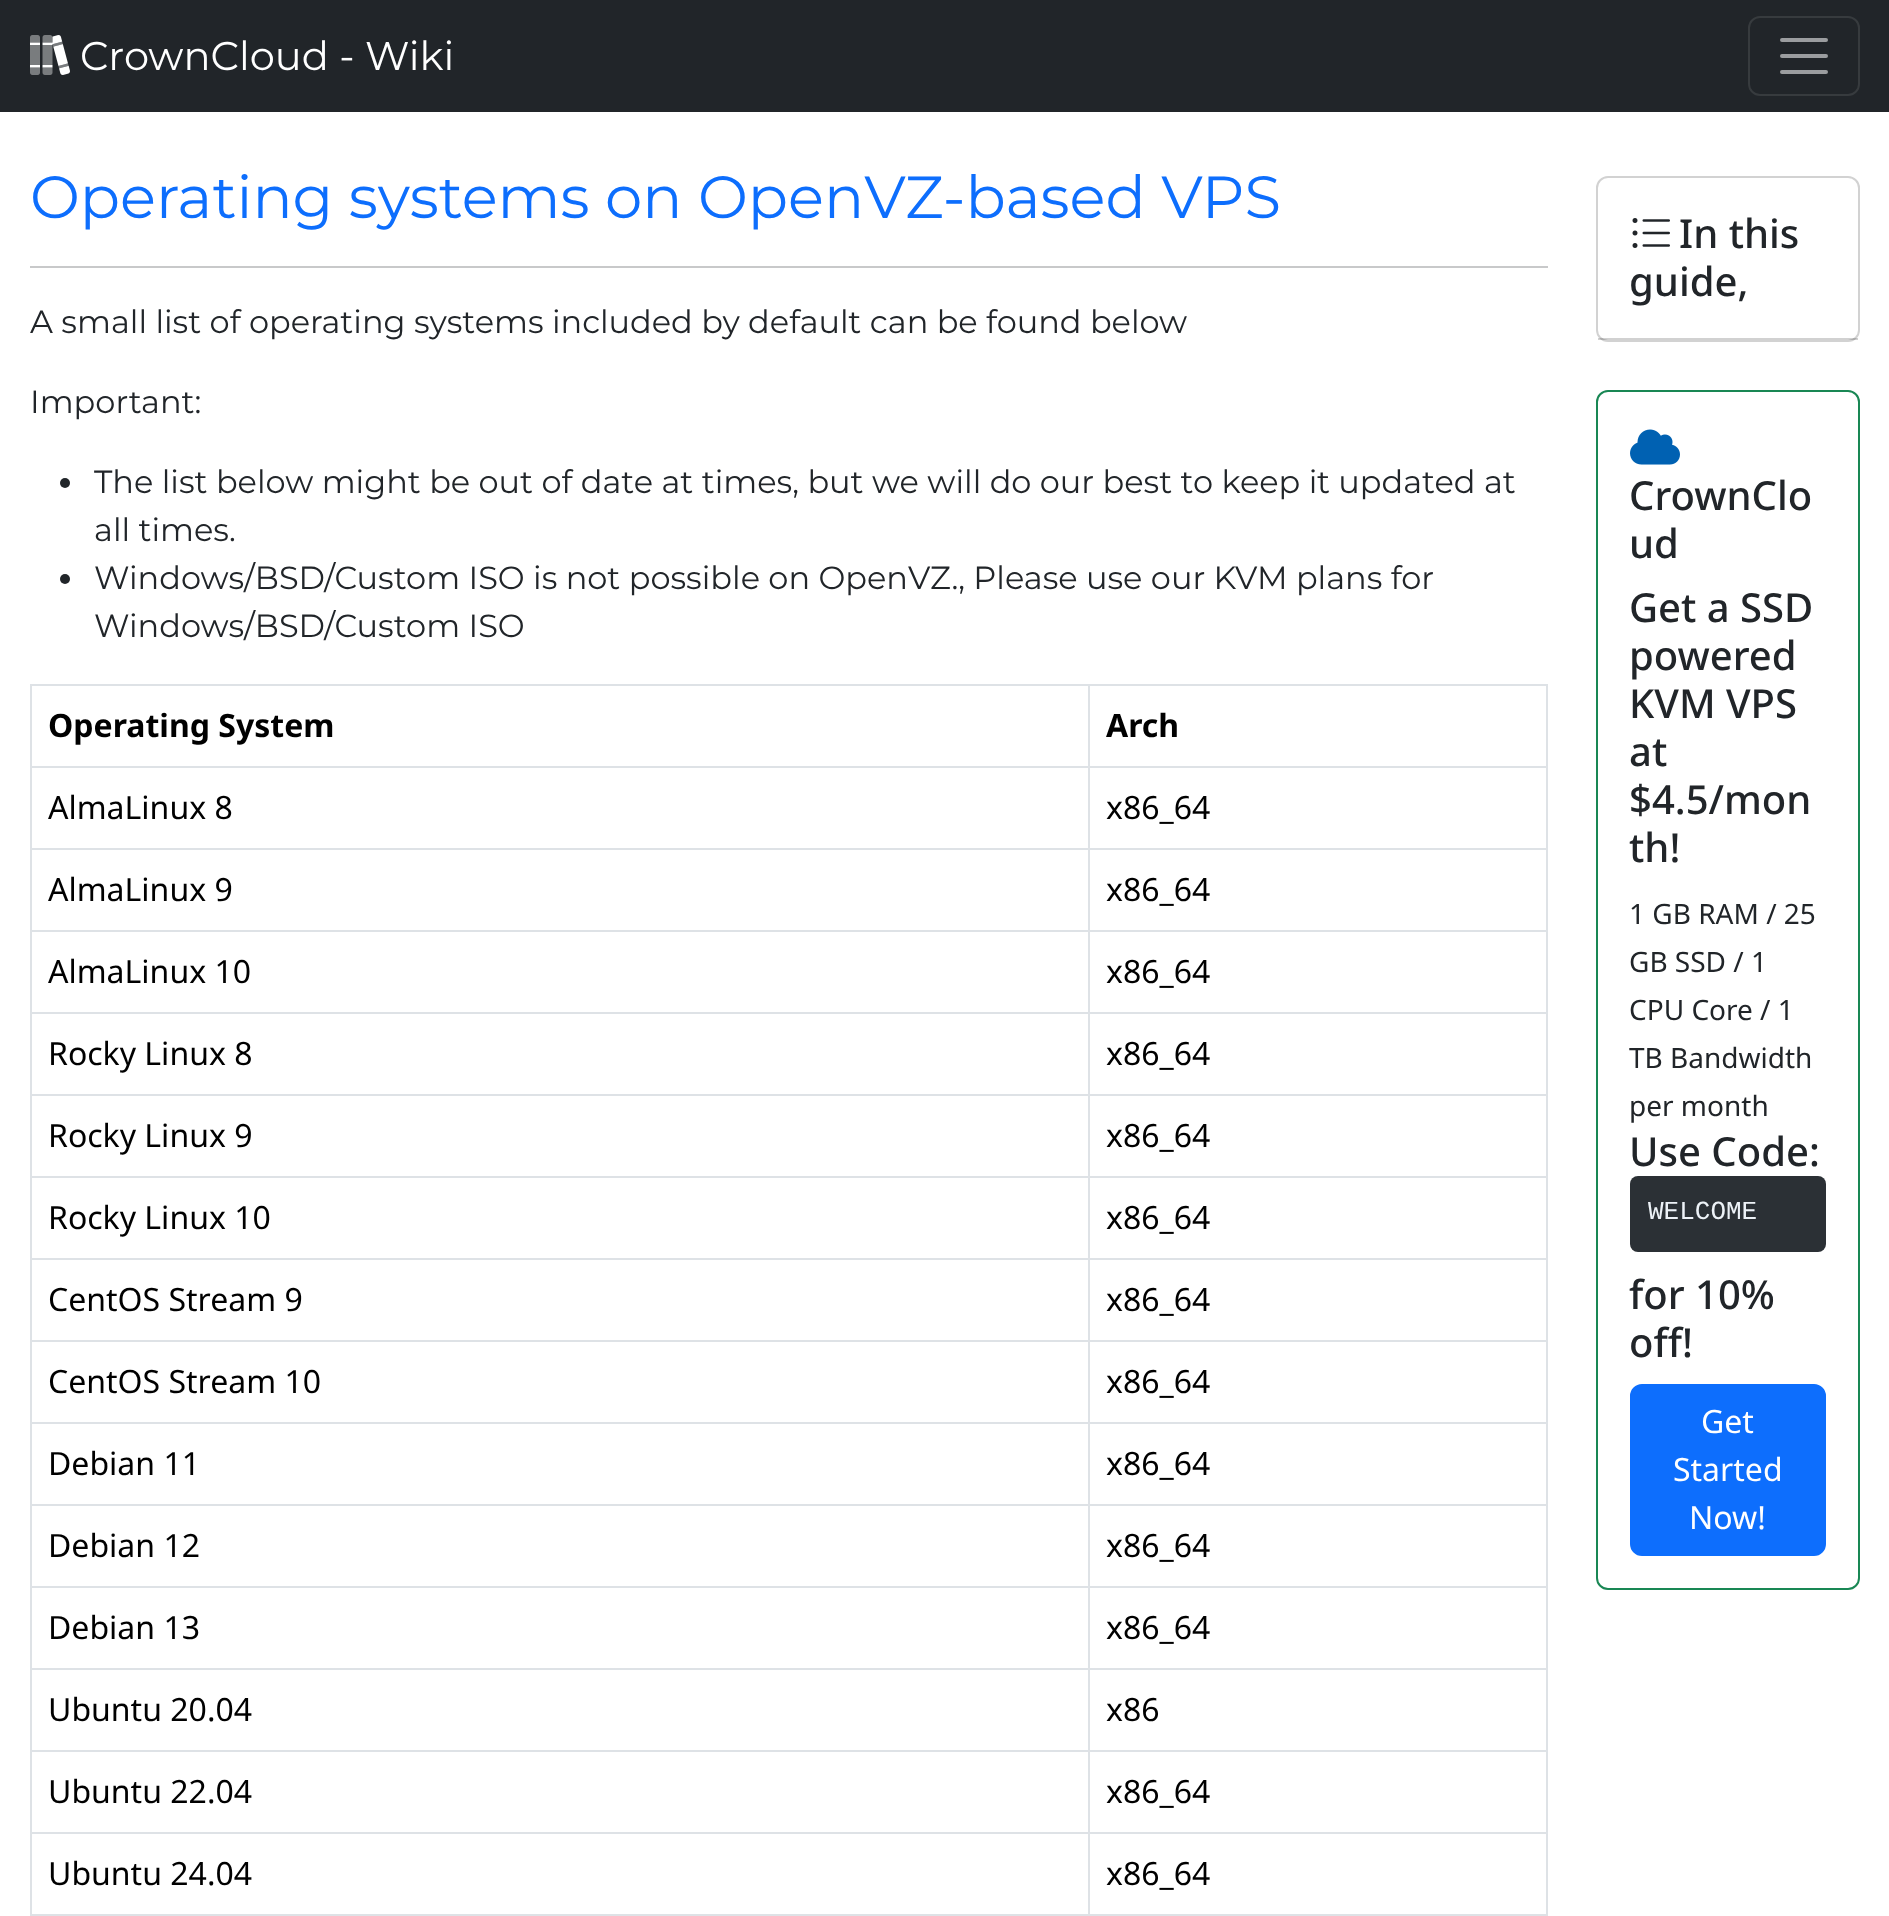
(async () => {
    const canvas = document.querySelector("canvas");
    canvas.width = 1889;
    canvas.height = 1916;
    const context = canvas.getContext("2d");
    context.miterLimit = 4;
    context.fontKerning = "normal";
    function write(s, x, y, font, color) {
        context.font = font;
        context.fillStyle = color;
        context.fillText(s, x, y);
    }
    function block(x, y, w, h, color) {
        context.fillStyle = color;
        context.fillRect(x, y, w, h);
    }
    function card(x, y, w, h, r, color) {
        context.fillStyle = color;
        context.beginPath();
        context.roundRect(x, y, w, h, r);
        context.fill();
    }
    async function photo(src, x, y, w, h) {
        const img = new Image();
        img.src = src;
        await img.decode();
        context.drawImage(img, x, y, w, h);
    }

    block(0, 0, 1889, 1916, "rgb(255, 255, 255)");
    block(0, 0, 1889, 112, "rgb(33, 37, 41)");
    await photo("media/1.png", 30, 35, 40, 40);
    await photo("media/2.png", 30, 35, 39, 40);
    write("CrownCloud - Wiki", 80, 70, "100 40px Montserrat", "rgb(255, 255, 255)");
    context.beginPath();
    context.roundRect(1749, 17, 110, 78, 11);
    context.strokeStyle = "rgb(55, 59, 62)";
    context.lineWidth = 2;
    context.stroke();
    context.beginPath();
    context.moveTo(1782, 40);
    context.lineTo(1826, 40);
    context.moveTo(1782, 56);
    context.lineTo(1826, 56);
    context.moveTo(1782, 72);
    context.lineTo(1826, 72);
    context.strokeStyle = "rgb(155, 157, 159)";
    context.lineWidth = 4;
    context.lineCap = "round";
    context.stroke();
    write("Operating systems on OpenVZ-based VPS", 30, 218, "100 59.4px Montserrat", "rgb(13, 110, 253)");
    block(30, 266, 1518, 2, "rgb(200, 201, 202)");
    write("A small list of operating systems included by default can be found below", 30, 333, "100 32px Montserrat", "rgb(33, 37, 41)");
    write("Important:", 30, 413, "100 32px Montserrat", "rgb(33, 37, 41)");
    context.beginPath();
    context.arc(65, 483, 5, 0, Math.PI * 2);
    context.fill();
    write("The list below might be out of date at times, but we will do our best to keep it updated at", 94, 493, "100 32px Montserrat", "rgb(33, 37, 41)");
    write("all times.", 94, 541, "100 32px Montserrat", "rgb(33, 37, 41)");
    context.beginPath();
    context.arc(65, 579, 5, 0, Math.PI * 2);
    context.fill();
    write("Windows/BSD/Custom ISO is not possible on OpenVZ., Please use our KVM plans for", 94, 589, "100 32px Montserrat", "rgb(33, 37, 41)");
    write("Windows/BSD/Custom ISO", 94, 637, "100 32px Montserrat", "rgb(33, 37, 41)");
    block(30, 684, 1518, 2, "rgb(222, 226, 230)");
    write("Operating System", 48, 737, "bold 32px Noto Sans", "rgb(0, 0, 0)");
    write("Arch", 1106, 737, "bold 32px Noto Sans", "rgb(0, 0, 0)");
    block(30, 766, 1518, 2, "rgb(222, 226, 230)");
    write("AlmaLinux 8", 48, 819, "32px Noto Sans", "rgb(0, 0, 0)");
    write("x86_64", 1106, 819, "32px Noto Sans", "rgb(0, 0, 0)");
    block(30, 848, 1518, 2, "rgb(222, 226, 230)");
    write("AlmaLinux 9", 48, 901, "32px Noto Sans", "rgb(0, 0, 0)");
    write("x86_64", 1106, 901, "32px Noto Sans", "rgb(0, 0, 0)");
    block(30, 930, 1518, 2, "rgb(222, 226, 230)");
    write("AlmaLinux 10", 48, 983, "32px Noto Sans", "rgb(0, 0, 0)");
    write("x86_64", 1106, 983, "32px Noto Sans", "rgb(0, 0, 0)");
    block(30, 1012, 1518, 2, "rgb(222, 226, 230)");
    write("Rocky Linux 8", 48, 1065, "32px Noto Sans", "rgb(0, 0, 0)");
    write("x86_64", 1106, 1065, "32px Noto Sans", "rgb(0, 0, 0)");
    block(30, 1094, 1518, 2, "rgb(222, 226, 230)");
    write("Rocky Linux 9", 48, 1147, "32px Noto Sans", "rgb(0, 0, 0)");
    write("x86_64", 1106, 1147, "32px Noto Sans", "rgb(0, 0, 0)");
    block(30, 1176, 1518, 2, "rgb(222, 226, 230)");
    write("Rocky Linux 10", 48, 1229, "32px Noto Sans", "rgb(0, 0, 0)");
    write("x86_64", 1106, 1229, "32px Noto Sans", "rgb(0, 0, 0)");
    block(30, 1258, 1518, 2, "rgb(222, 226, 230)");
    write("CentOS Stream 9", 48, 1311, "32px Noto Sans", "rgb(0, 0, 0)");
    write("x86_64", 1106, 1311, "32px Noto Sans", "rgb(0, 0, 0)");
    block(30, 1340, 1518, 2, "rgb(222, 226, 230)");
    write("CentOS Stream 10", 48, 1393, "32px Noto Sans", "rgb(0, 0, 0)");
    write("x86_64", 1106, 1393, "32px Noto Sans", "rgb(0, 0, 0)");
    block(30, 1422, 1518, 2, "rgb(222, 226, 230)");
    write("Debian 11", 48, 1475, "32px Noto Sans", "rgb(0, 0, 0)");
    write("x86_64", 1106, 1475, "32px Noto Sans", "rgb(0, 0, 0)");
    block(30, 1504, 1518, 2, "rgb(222, 226, 230)");
    write("Debian 12", 48, 1557, "32px Noto Sans", "rgb(0, 0, 0)");
    write("x86_64", 1106, 1557, "32px Noto Sans", "rgb(0, 0, 0)");
    block(30, 1586, 1518, 2, "rgb(222, 226, 230)");
    write("Debian 13", 48, 1639, "32px Noto Sans", "rgb(0, 0, 0)");
    write("x86_64", 1106, 1639, "32px Noto Sans", "rgb(0, 0, 0)");
    block(30, 1668, 1518, 2, "rgb(222, 226, 230)");
    write("Ubuntu 20.04", 48, 1721, "32px Noto Sans", "rgb(0, 0, 0)");
    write("x86", 1106, 1721, "32px Noto Sans", "rgb(0, 0, 0)");
    block(30, 1750, 1518, 2, "rgb(222, 226, 230)");
    write("Ubuntu 22.04", 48, 1803, "32px Noto Sans", "rgb(0, 0, 0)");
    write("x86_64", 1106, 1803, "32px Noto Sans", "rgb(0, 0, 0)");
    block(30, 1832, 1518, 2, "rgb(222, 226, 230)");
    block(30, 1914, 1518, 2, "rgb(222, 226, 230)");
    block(30, 684, 2, 1232, "rgb(222, 226, 230)");
    write("Ubuntu 24.04", 48, 1885, "32px Noto Sans", "rgb(0, 0, 0)");
    block(1546, 684, 2, 1232, "rgb(222, 226, 230)");
    block(1088, 684, 2, 1232, "rgb(222, 226, 230)");
    write("x86_64", 1106, 1885, "32px Noto Sans", "rgb(0, 0, 0)");
    context.beginPath();
    context.roundRect(1597, 177, 262, 164, 11);
    context.strokeStyle = "rgb(210, 210, 210)";
    context.lineWidth = 2;
    context.stroke();
    await photo("media/3.png", 1632, 218, 38, 30);
    write("In this", 1679, 248, "500 40px Noto Sans", "rgb(33, 37, 41)");
    write("guide,", 1629, 296, "500 40px Noto Sans", "rgb(33, 37, 41)");
    block(1598, 338, 260, 2, "rgba(0, 0, 0, 0.18)");
    context.beginPath();
    context.roundRect(1597, 391, 262, 1198, 11);
    context.strokeStyle = "rgb(25, 135, 84)";
    context.stroke();
    await photo("media/4.png", 1630, 429, 50, 36);
    write("CrownClo", 1629, 510, "500 40px Noto Sans", "rgb(33, 37, 41)");
    write("ud", 1629, 558, "500 40px Noto Sans", "rgb(33, 37, 41)");
    write("Get a SSD", 1629, 622, "500 40px Noto Sans", "rgb(33, 37, 41)");
    write("powered", 1629, 670, "500 40px Noto Sans", "rgb(33, 37, 41)");
    write("KVM VPS", 1629, 718, "500 40px Noto Sans", "rgb(33, 37, 41)");
    write("at", 1629, 766, "500 40px Noto Sans", "rgb(33, 37, 41)");
    write("$4.5/mon", 1629, 814, "500 40px Noto Sans", "rgb(33, 37, 41)");
    write("th!", 1629, 862, "500 40px Noto Sans", "rgb(33, 37, 41)");
    write("1 GB RAM / 25", 1629, 924, "28px Noto Sans", "rgb(33, 37, 41)");
    write("GB SSD / 1", 1629, 972, "28px Noto Sans", "rgb(33, 37, 41)");
    write("CPU Core / 1", 1629, 1020, "28px Noto Sans", "rgb(33, 37, 41)");
    write("TB Bandwidth", 1629, 1068, "28px Noto Sans", "rgb(33, 37, 41)");
    write("per month", 1629, 1116, "28px Noto Sans", "rgb(33, 37, 41)");
    write("Use Code:", 1629, 1166, "500 40px Noto Sans", "rgb(33, 37, 41)");
    card(1630, 1176, 196, 76, 8, "rgb(43, 48, 53)");
    write("WELCOME", 1648, 1219, "26px Liberation Mono", "rgb(237, 242, 247)");
    write("for 10%", 1629, 1309, "500 40px Noto Sans", "rgb(33, 37, 41)");
    write("off!", 1629, 1357, "500 40px Noto Sans", "rgb(33, 37, 41)");
    context.fillStyle = "rgb(13, 110, 253)";
    context.beginPath();
    context.roundRect(1631, 1385, 194, 170, 11);
    context.fill();
    context.strokeStyle = "rgb(13, 110, 253)";
    context.stroke();
    write("Get", 1701, 1433, "32px Noto Sans", "rgb(255, 255, 255)");
    write("Started", 1673, 1481, "32px Noto Sans", "rgb(255, 255, 255)");
    write("Now!", 1689, 1529, "32px Noto Sans", "rgb(255, 255, 255)");
})();
